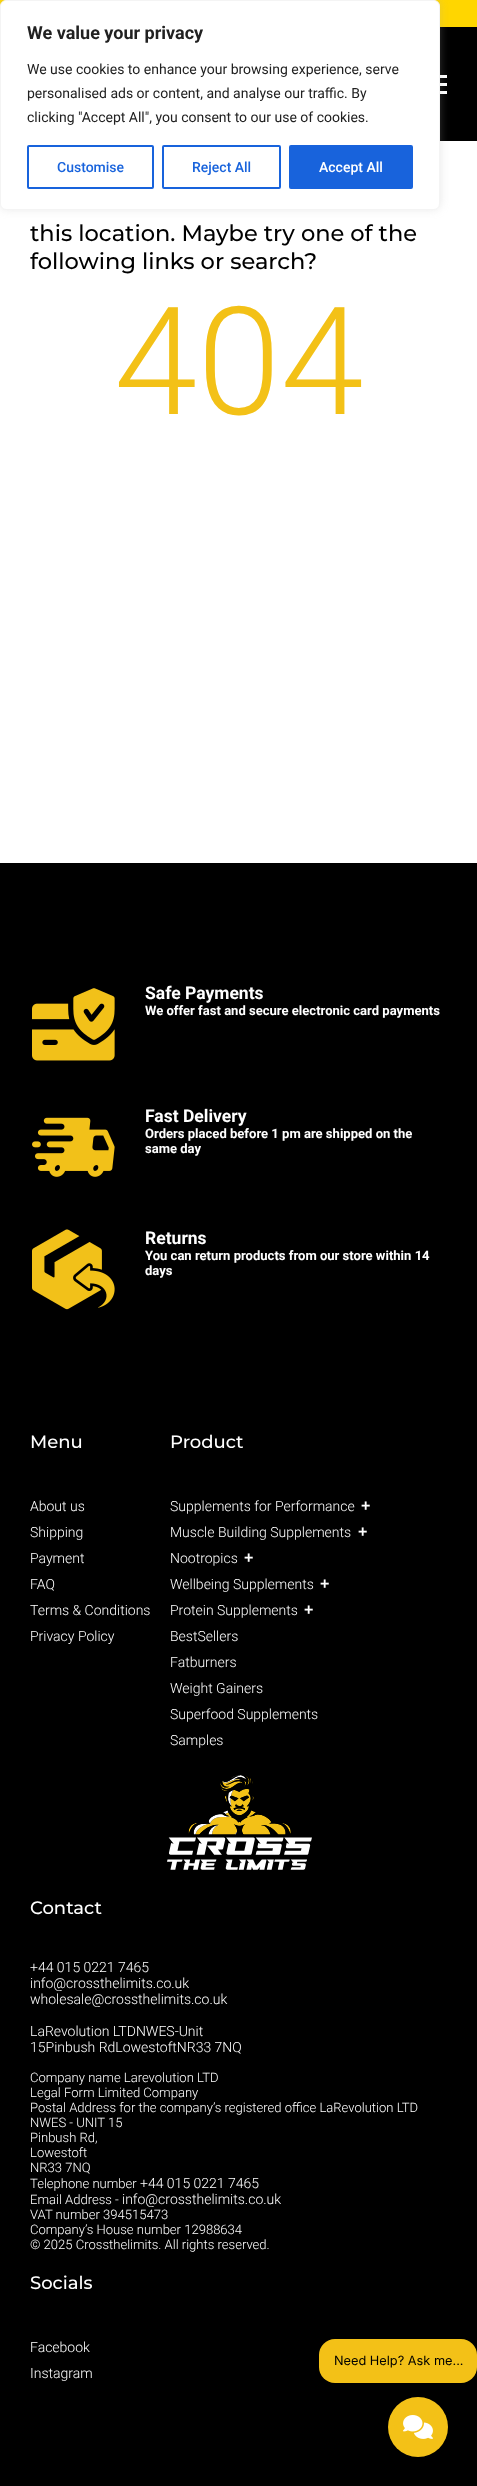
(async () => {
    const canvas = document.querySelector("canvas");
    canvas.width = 477;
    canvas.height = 2486;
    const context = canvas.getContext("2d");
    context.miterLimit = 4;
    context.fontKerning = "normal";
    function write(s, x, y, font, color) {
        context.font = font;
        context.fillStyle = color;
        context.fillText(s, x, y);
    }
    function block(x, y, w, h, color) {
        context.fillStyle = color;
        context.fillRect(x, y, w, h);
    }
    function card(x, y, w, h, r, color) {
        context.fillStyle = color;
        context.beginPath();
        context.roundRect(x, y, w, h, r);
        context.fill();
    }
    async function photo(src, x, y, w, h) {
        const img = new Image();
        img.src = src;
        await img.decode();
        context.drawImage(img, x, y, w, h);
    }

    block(0, 0, 477, 2486, "rgb(255, 255, 255)");
    block(0, 0, 477, 27, "rgb(255, 214, 0)");
    block(440, 27, 37, 114, "rgb(0, 0, 0)");
    block(440, 83, 7, 3, "rgb(255, 255, 255)");
    block(440, 75, 7, 3, "rgb(255, 255, 255)");
    block(440, 91, 7, 3, "rgb(255, 255, 255)");
    context.fillStyle = "rgba(172, 171, 171, 0.3)";
    context.filter = "blur(5px)";
    context.beginPath();
    context.roundRect(0, -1, 440, 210, 6);
    context.fill();
    context.filter = "none";
    context.fillStyle = "rgb(255, 255, 255)";
    context.beginPath();
    context.roundRect(0.5, 0.5, 439, 209, 5.5);
    context.fill();
    context.strokeStyle = "rgb(244, 244, 244)";
    context.stroke();
    write("We value your privacy", 27, 39, "bold 18px Roboto", "rgb(33, 33, 33)");
    write("We use cookies to enhance your browsing experience, serve", 27, 74, "14px Roboto", "rgb(33, 33, 33)");
    write("personalised ads or content, and analyse our traffic. By", 27, 98, "14px Roboto", "rgb(33, 33, 33)");
    write("clicking \"Accept All\", you consent to our use of cookies.", 27, 122, "14px Roboto", "rgb(33, 33, 33)");
    context.beginPath();
    context.roundRect(28, 146, 125, 42, 1);
    context.strokeStyle = "rgb(24, 99, 220)";
    context.lineWidth = 2;
    context.stroke();
    write("Customise", 57, 172, "500 14px Roboto", "rgb(24, 99, 220)");
    context.beginPath();
    context.roundRect(163, 146, 117, 42, 1);
    context.stroke();
    write("Reject All", 192, 172, "500 14px Roboto", "rgb(24, 99, 220)");
    context.beginPath();
    context.roundRect(290, 146, 122, 42, 1);
    context.fill();
    context.stroke();
    write("Accept All", 319, 172, "500 14px Roboto", "rgb(255, 255, 255)");
    write("this location. Maybe try one of the", 30, 241, "500 22.5px Montserrat", "rgb(0, 0, 0)");
    write("following links or search?", 30, 269, "500 22.5px Montserrat", "rgb(0, 0, 0)");
    write("404", 114, 414, "300 150px Roboto", "rgb(243, 193, 23)");
    block(0, 863, 477, 1623, "rgb(0, 0, 0)");
    await photo("media/1.png", 32, 988, 83, 73);
    write("Safe Payments", 145, 999, "bold 17.5px Roboto", "rgb(255, 255, 255)");
    write("We offer fast and secure electronic card payments", 145, 1015, "bold 13.05px Roboto", "rgb(255, 255, 255)");
    await photo("media/2.png", 32, 1117, 83, 60);
    write("Fast Delivery", 145, 1122, "bold 17.5px Roboto", "rgb(255, 255, 255)");
    write("Orders placed before 1 pm are shipped on the", 145, 1138, "bold 13.05px Roboto", "rgb(255, 255, 255)");
    write("same day", 145, 1153, "bold 13.05px Roboto", "rgb(255, 255, 255)");
    await photo("media/3.png", 32, 1229, 83, 81);
    write("Returns", 145, 1244, "bold 17.5px Roboto", "rgb(255, 255, 255)");
    write("You can return products from our store within 14", 145, 1260, "bold 13.05px Roboto", "rgb(255, 255, 255)");
    write("days", 145, 1275, "bold 13.05px Roboto", "rgb(255, 255, 255)");
    write("Menu", 30, 1448, "500 18px Montserrat", "rgb(255, 255, 255)");
    write("About us", 30, 1511, "300 14px Roboto", "rgb(255, 255, 255)");
    write("Shipping", 30, 1537, "300 14px Roboto", "rgb(255, 255, 255)");
    write("Payment", 30, 1563, "300 14px Roboto", "rgb(255, 255, 255)");
    write("FAQ", 30, 1589, "300 14px Roboto", "rgb(255, 255, 255)");
    write("Terms & Conditions", 30, 1615, "300 14px Roboto", "rgb(255, 255, 255)");
    write("Privacy Policy", 30, 1641, "300 14px Roboto", "rgb(255, 255, 255)");
    write("Product", 170, 1448, "500 18px Montserrat", "rgb(255, 255, 255)");
    write("Supplements for Performance", 170, 1511, "300 14px Roboto", "rgb(255, 255, 255)");
    write("+", 361, 1511, "bold 16px Liberation Sans", "rgb(255, 255, 255)");
    write("Muscle Building Supplements", 170, 1537, "300 14px Roboto", "rgb(255, 255, 255)");
    write("+", 358, 1537, "bold 16px Liberation Sans", "rgb(255, 255, 255)");
    write("Nootropics", 170, 1563, "300 14px Roboto", "rgb(255, 255, 255)");
    write("+", 244, 1563, "bold 16px Liberation Sans", "rgb(255, 255, 255)");
    write("Wellbeing Supplements", 170, 1589, "300 14px Roboto", "rgb(255, 255, 255)");
    write("+", 320, 1589, "bold 16px Liberation Sans", "rgb(255, 255, 255)");
    write("Protein Supplements", 170, 1615, "300 14px Roboto", "rgb(255, 255, 255)");
    write("+", 304, 1615, "bold 16px Liberation Sans", "rgb(255, 255, 255)");
    write("BestSellers", 170, 1641, "300 14px Roboto", "rgb(255, 255, 255)");
    write("Fatburners", 170, 1667, "300 14px Roboto", "rgb(255, 255, 255)");
    write("Weight Gainers", 170, 1693, "300 14px Roboto", "rgb(255, 255, 255)");
    write("Superfood Supplements", 170, 1719, "300 14px Roboto", "rgb(255, 255, 255)");
    write("Samples", 170, 1745, "300 14px Roboto", "rgb(255, 255, 255)");
    await photo("media/4.png", 167, 1775, 145, 95);
    write("Contact", 30, 1914, "500 18px Montserrat", "rgb(255, 255, 255)");
    write("+44 015 0221 7465", 30, 1972, "300 14px Roboto", "rgb(255, 255, 255)");
    write("info@crossthelimits.co.uk", 30, 1988, "300 14px Roboto", "rgb(255, 255, 255)");
    write("wholesale@crossthelimits.co.uk", 30, 2004, "300 14px Roboto", "rgb(255, 255, 255)");
    write("LaRevolution LTDNWES-Unit", 30, 2036, "300 14px Roboto", "rgb(255, 255, 255)");
    write("15Pinbush RdLowestoftNR33 7NQ", 30, 2052, "300 14px Roboto", "rgb(255, 255, 255)");
    write("Company name Larevolution LTD", 30, 2082, "300 13.05px Roboto", "rgb(255, 255, 255)");
    write("Legal Form Limited Company", 30, 2097, "300 13.05px Roboto", "rgb(255, 255, 255)");
    write("Postal Address for the company’s registered office LaRevolution LTD", 30, 2112, "300 13.05px Roboto", "rgb(255, 255, 255)");
    write("NWES - UNIT 15", 30, 2127, "300 13.05px Roboto", "rgb(255, 255, 255)");
    write("Pinbush Rd,", 30, 2142, "300 13.05px Roboto", "rgb(255, 255, 255)");
    write("Lowestoft", 30, 2157, "300 13.05px Roboto", "rgb(255, 255, 255)");
    write("NR33 7NQ", 30, 2172, "300 13.05px Roboto", "rgb(255, 255, 255)");
    write("Telephone number", 30, 2188, "300 13.05px Roboto", "rgb(255, 255, 255)");
    write("+44 015 0221 7465", 140, 2188, "300 14px Roboto", "rgb(255, 255, 255)");
    write("Email Address -", 30, 2204, "300 13.05px Roboto", "rgb(255, 255, 255)");
    write("info@crossthelimits.co.uk", 122, 2204, "300 14px Roboto", "rgb(255, 255, 255)");
    write("VAT number 394515473", 30, 2219, "300 13.05px Roboto", "rgb(255, 255, 255)");
    write("Company’s House number 12988634", 30, 2234, "300 13.05px Roboto", "rgb(255, 255, 255)");
    write("© 2025 Crossthelimits. All rights reserved.", 30, 2249, "300 13.05px Roboto", "rgb(255, 255, 255)");
    write("Socials", 30, 2289, "500 18px Montserrat", "rgb(255, 255, 255)");
    write("Facebook", 30, 2352, "300 14px Roboto", "rgb(255, 255, 255)");
    write("Instagram", 30, 2378, "300 14px Roboto", "rgb(255, 255, 255)");
    card(319, 2339, 158, 44, 16, "rgb(243, 193, 23)");
    write("Need Help? Ask me...", 334, 2365, "12.75px Inter", "rgb(0, 0, 0)");
    context.fillStyle = "rgb(243, 193, 23)";
    context.beginPath();
    context.arc(418, 2427, 30, 0, Math.PI * 2);
    context.fill();
    await photo("media/5.png", 403, 2415, 30, 24);
})();
